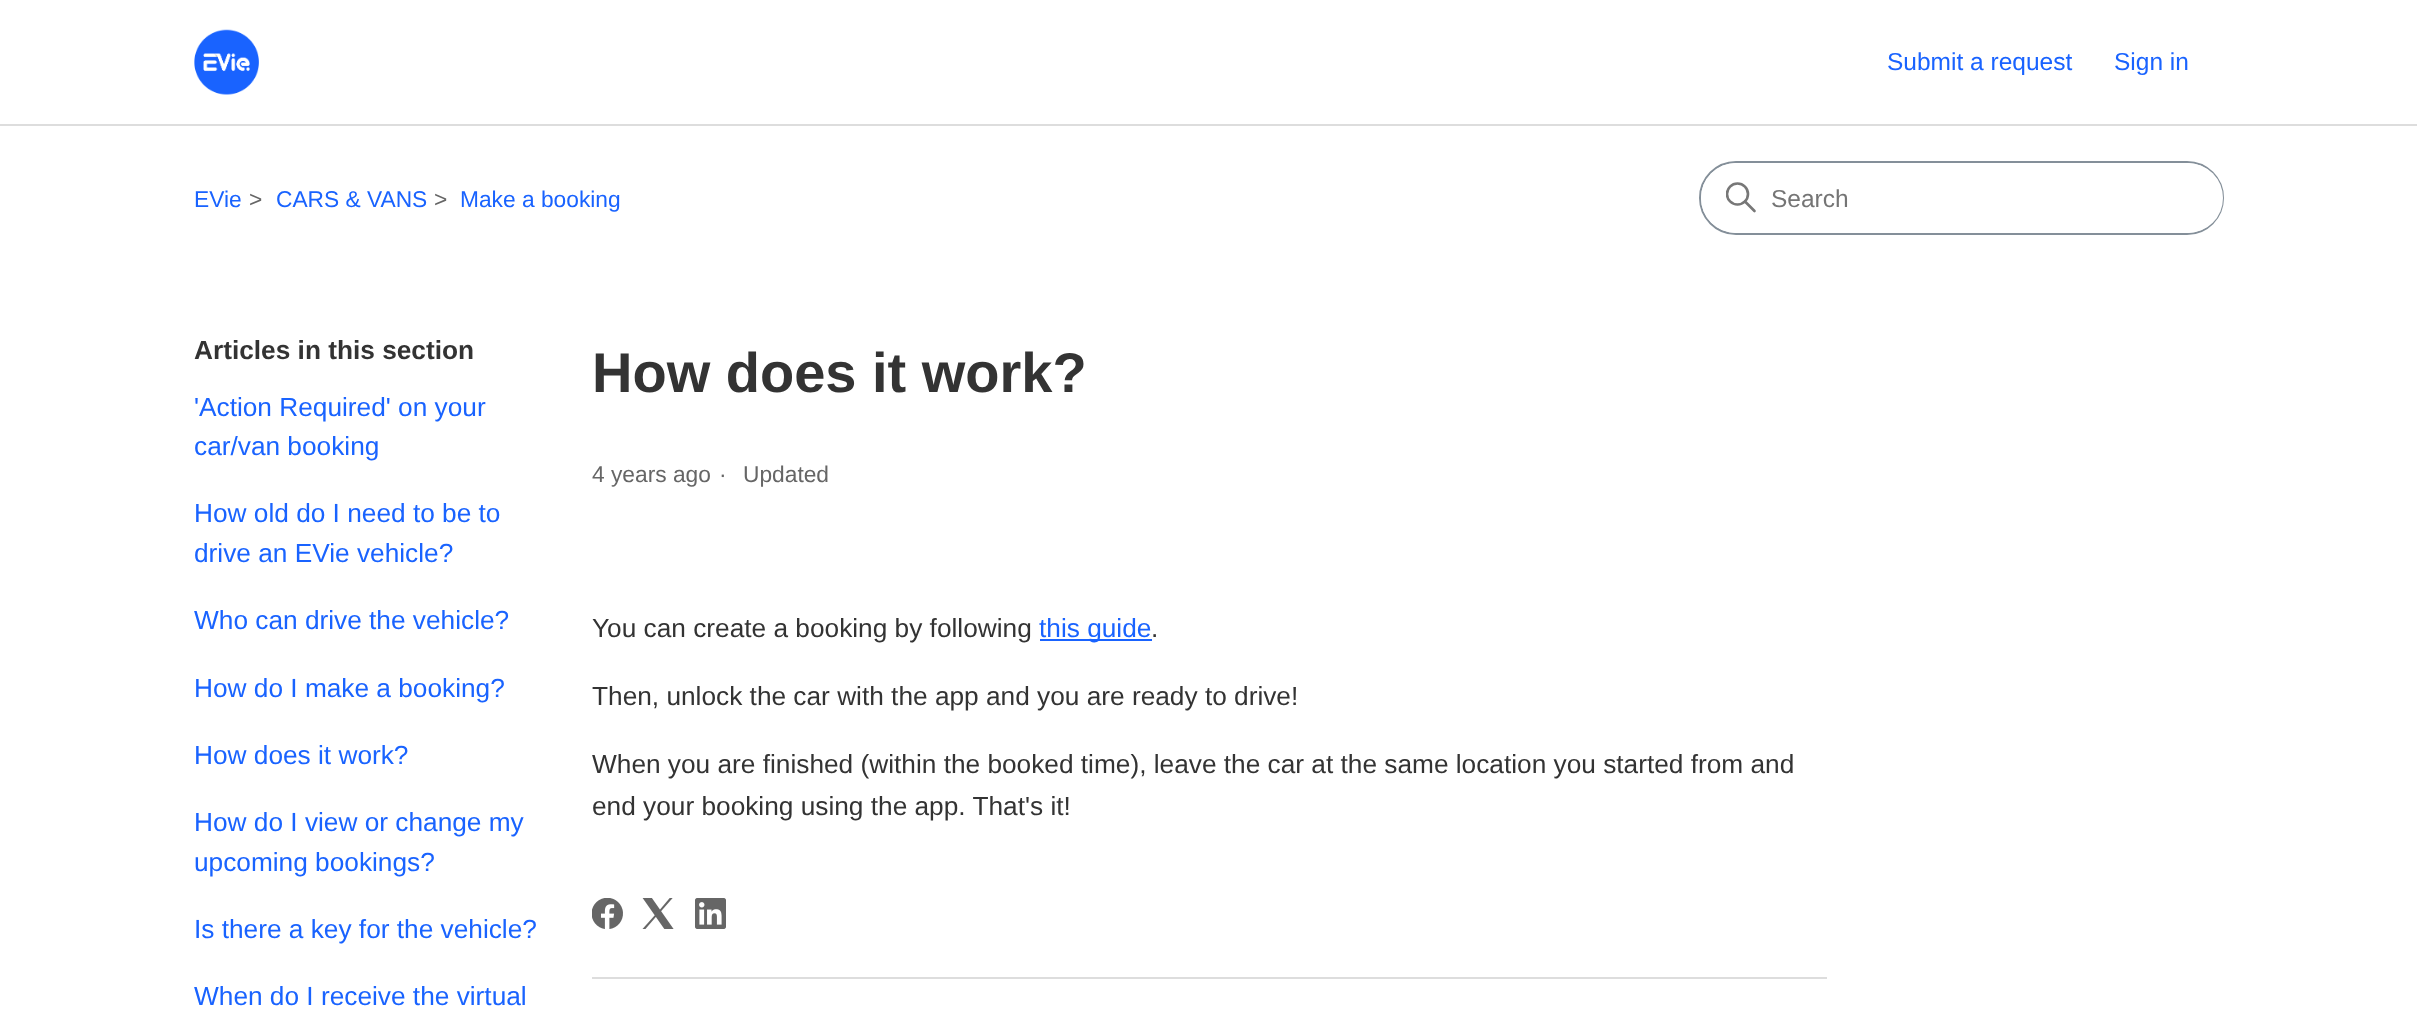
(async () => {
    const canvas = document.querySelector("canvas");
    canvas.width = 2417;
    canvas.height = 1032;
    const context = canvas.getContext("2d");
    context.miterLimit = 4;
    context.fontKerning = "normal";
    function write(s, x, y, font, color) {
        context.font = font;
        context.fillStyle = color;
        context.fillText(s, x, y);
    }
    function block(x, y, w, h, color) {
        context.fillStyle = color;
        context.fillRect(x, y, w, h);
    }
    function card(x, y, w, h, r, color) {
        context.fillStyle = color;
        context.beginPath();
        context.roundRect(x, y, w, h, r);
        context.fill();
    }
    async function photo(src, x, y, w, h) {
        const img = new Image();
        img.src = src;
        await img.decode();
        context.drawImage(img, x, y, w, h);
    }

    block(0, 0, 2417, 1032, "rgb(255, 255, 255)");
    await photo("media/1.png", 194, 29, 65, 66);
    write("Submit a request", 1887, 70, "24.5px Liberation Sans", "rgb(25, 99, 255)");
    write("Sign in", 2114, 70, "24.5px Liberation Sans", "rgb(25, 99, 255)");
    block(0, 124, 2417, 2, "rgb(221, 221, 221)");
    write("EVie", 194, 207, "22.75px Liberation Sans", "rgb(25, 99, 255)");
    write(">", 249, 207, "22.75px Liberation Sans", "rgb(102, 102, 102)");
    write("CARS & VANS", 276, 207, "22.75px Liberation Sans", "rgb(25, 99, 255)");
    write(">", 434, 207, "22.75px Liberation Sans", "rgb(102, 102, 102)");
    write("Make a booking", 460, 207, "22.75px Liberation Sans", "rgb(25, 99, 255)");
    context.beginPath();
    context.roundRect(1700, 162, 523, 72, 36);
    context.strokeStyle = "rgb(132, 143, 153)";
    context.lineWidth = 2;
    context.stroke();
    card(1701, 163, 522, 70, 35, "rgb(255, 255, 255)");
    context.save();
    context.beginPath();
    context.rect(1726, 182, 31, 32);
    context.clip();
    context.beginPath();
    context.arc(1737.5, 194, 10.5, 0, Math.PI * 2);
    context.strokeStyle = "rgb(119, 119, 119)";
    context.lineWidth = 2.6;
    context.stroke();
    context.restore();
    context.beginPath();
    context.moveTo(1754.5, 211);
    context.lineTo(1745, 201.5);
    context.strokeStyle = "rgb(119, 119, 119)";
    context.lineWidth = 2.6;
    context.lineCap = "round";
    context.stroke();
    write("Search", 1771, 207, "24.5px Liberation Sans", "rgb(117, 117, 117)");
    write("Articles in this section", 194, 359, "bold 26.25px Liberation Sans", "rgb(51, 51, 51)");
    write("'Action Required' on your", 194, 416, "26.25px Liberation Sans", "rgb(25, 99, 255)");
    write("car/van booking", 194, 455, "26.25px Liberation Sans", "rgb(25, 99, 255)");
    write("How old do I need to be to", 194, 522, "26.25px Liberation Sans", "rgb(25, 99, 255)");
    write("drive an EVie vehicle?", 194, 562, "26.25px Liberation Sans", "rgb(25, 99, 255)");
    write("Who can drive the vehicle?", 194, 629, "26.25px Liberation Sans", "rgb(25, 99, 255)");
    write("How do I make a booking?", 194, 697, "26.25px Liberation Sans", "rgb(25, 99, 255)");
    write("How does it work?", 194, 764, "26.25px Liberation Sans", "rgb(25, 99, 255)");
    write("How do I view or change my", 194, 831, "26.25px Liberation Sans", "rgb(25, 99, 255)");
    write("upcoming bookings?", 194, 871, "26.25px Liberation Sans", "rgb(25, 99, 255)");
    write("Is there a key for the vehicle?", 194, 938, "26.25px Liberation Sans", "rgb(25, 99, 255)");
    write("When do I receive the virtual", 194, 1005, "26.25px Liberation Sans", "rgb(25, 99, 255)");
    write("How does it work?", 592, 392, "bold 56px Liberation Sans", "rgb(51, 51, 51)");
    write("4 years ago", 592, 482, "22.75px Liberation Sans", "rgb(102, 102, 102)");
    write("·", 719, 482, "22.75px Liberation Sans", "rgb(102, 102, 102)");
    write("Updated", 743, 482, "22.75px Liberation Sans", "rgb(102, 102, 102)");
    write("You can create a booking by following", 592, 637, "26.25px Liberation Sans", "rgb(51, 51, 51)");
    block(1040, 639, 112, 2, "rgb(25, 99, 255)");
    write("this guide", 1039, 637, "26.25px Liberation Sans", "rgb(25, 99, 255)");
    write(".", 1151, 637, "26.25px Liberation Sans", "rgb(51, 51, 51)");
    write("Then, unlock the car with the app and you are ready to drive!", 592, 705, "26.25px Liberation Sans", "rgb(51, 51, 51)");
    write("When you are finished (within the booked time), leave the car at the same location you started from and", 592, 773, "26.25px Liberation Sans", "rgb(51, 51, 51)");
    write("end your booking using the app. That's it!", 592, 815, "26.25px Liberation Sans", "rgb(51, 51, 51)");
    await photo("media/2.png", 592, 898, 31, 31);
    await photo("media/3.png", 642, 898, 32, 31);
    await photo("media/4.png", 695, 898, 31, 31);
    block(592, 977, 1235, 2, "rgb(221, 221, 221)");
})();
